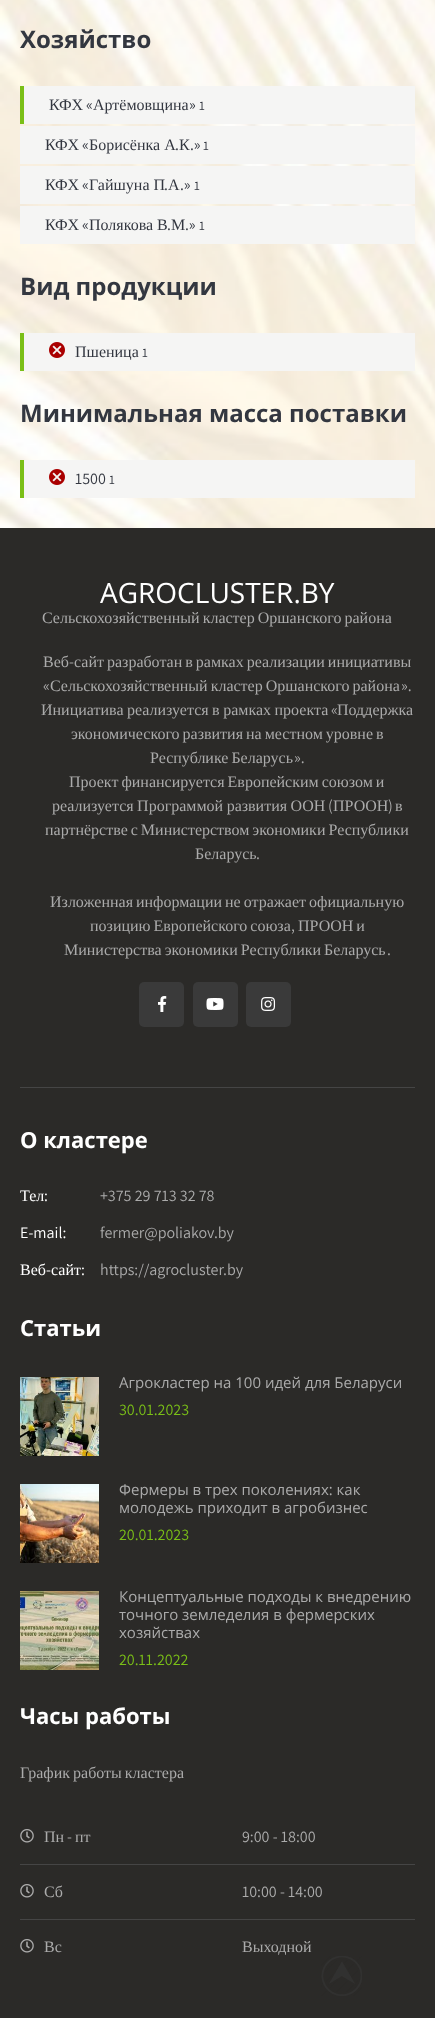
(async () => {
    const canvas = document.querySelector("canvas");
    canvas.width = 435;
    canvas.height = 2018;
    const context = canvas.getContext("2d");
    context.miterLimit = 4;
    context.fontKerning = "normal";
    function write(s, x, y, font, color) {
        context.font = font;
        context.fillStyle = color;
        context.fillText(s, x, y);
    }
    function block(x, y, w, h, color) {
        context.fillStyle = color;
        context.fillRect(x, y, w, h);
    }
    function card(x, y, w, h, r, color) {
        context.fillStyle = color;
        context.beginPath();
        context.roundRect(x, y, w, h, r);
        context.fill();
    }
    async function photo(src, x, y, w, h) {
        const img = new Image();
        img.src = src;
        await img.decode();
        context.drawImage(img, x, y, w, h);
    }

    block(0, 0, 435, 2018, "rgb(255, 255, 255)");
    await photo("media/1.png", 0, 0, 435, 528);
    write("Хозяйство", 20, 48, "bold 24px Open Sans", "rgb(51, 55, 64)");
    block(24, 86, 391, 38, "rgb(245, 245, 244)");
    block(20, 86, 4, 38, "rgb(122, 191, 23)");
    write("КФХ", 49, 110, "16px Liberation Serif", "rgb(51, 55, 64)");
    write("«", 86, 110, "16px Assistant", "rgb(51, 55, 64)");
    write("Артёмовщина", 93, 110, "16px Liberation Serif", "rgb(51, 55, 64)");
    write("»", 189, 110, "16px Assistant", "rgb(51, 55, 64)");
    write("1", 199, 110, "13px Assistant", "rgb(51, 55, 64)");
    block(20, 126, 395, 38, "rgb(245, 245, 244)");
    write("КФХ", 45, 150, "16px Liberation Serif", "rgb(51, 55, 64)");
    write("«", 82, 150, "16px Assistant", "rgb(51, 55, 64)");
    write("Борисёнка А", 89, 150, "16px Liberation Serif", "rgb(51, 55, 64)");
    write(".", 175, 150, "16px Assistant", "rgb(51, 55, 64)");
    write("К", 179, 150, "16px Liberation Serif", "rgb(51, 55, 64)");
    write(".»", 190, 150, "16px Assistant", "rgb(51, 55, 64)");
    write("1", 203, 150, "13px Assistant", "rgb(51, 55, 64)");
    block(20, 166, 395, 38, "rgb(245, 245, 244)");
    write("КФХ", 45, 190, "16px Liberation Serif", "rgb(51, 55, 64)");
    write("«", 82, 190, "16px Assistant", "rgb(51, 55, 64)");
    write("Гайшуна П", 89, 190, "16px Liberation Serif", "rgb(51, 55, 64)");
    write(".", 164, 190, "16px Assistant", "rgb(51, 55, 64)");
    write("А", 168, 190, "16px Liberation Serif", "rgb(51, 55, 64)");
    write(".»", 180, 190, "16px Assistant", "rgb(51, 55, 64)");
    write("1", 194, 190, "13px Assistant", "rgb(51, 55, 64)");
    block(20, 206, 395, 38, "rgb(245, 245, 244)");
    write("КФХ", 45, 230, "16px Liberation Serif", "rgb(51, 55, 64)");
    write("«", 82, 230, "16px Assistant", "rgb(51, 55, 64)");
    write("Полякова В", 89, 230, "16px Liberation Serif", "rgb(51, 55, 64)");
    write(".", 167, 230, "16px Assistant", "rgb(51, 55, 64)");
    write("М", 171, 230, "16px Liberation Serif", "rgb(51, 55, 64)");
    write(".»", 185, 230, "16px Assistant", "rgb(51, 55, 64)");
    write("1", 199, 230, "13px Assistant", "rgb(51, 55, 64)");
    write("Вид продукции", 20, 295, "bold 24px Open Sans", "rgb(51, 55, 64)");
    block(24, 333, 391, 38, "rgb(245, 245, 244)");
    block(20, 333, 4, 38, "rgb(122, 191, 23)");
    await photo("media/2.png", 49, 342, 16, 16);
    write("Пшеница", 75, 357, "16px Liberation Serif", "rgb(51, 55, 64)");
    write("1", 142, 357, "13px Assistant", "rgb(51, 55, 64)");
    write("Минимальная масса поставки", 20, 422, "bold 24px Open Sans", "rgb(51, 55, 64)");
    block(24, 460, 391, 38, "rgb(245, 245, 244)");
    block(20, 460, 4, 38, "rgb(122, 191, 23)");
    await photo("media/2.png", 49, 469, 16, 16);
    write("1500", 75, 484, "16px Assistant", "rgb(51, 55, 64)");
    write("1", 109, 484, "13px Assistant", "rgb(51, 55, 64)");
    block(0, 528, 435, 1490, "rgb(43, 42, 40)");
    block(20, 1087, 395, 1, "rgb(69, 69, 69)");
    write("AGROCLUSTER.BY", 100, 603, "28px Open Sans", "rgb(255, 255, 255)");
    context.wordSpacing = "-1px";
    write("Сельскохозяйственный кластер Оршанского района", 42, 623, "16px Liberation Serif", "rgb(171, 171, 171)");
    context.wordSpacing = "0px";
    write("Веб", 43, 667, "16px Liberation Serif", "rgb(171, 171, 171)");
    write("-", 69, 667, "16px Assistant", "rgb(171, 171, 171)");
    context.wordSpacing = "-1px";
    write("сайт разработан в рамках реализации инициативы", 74, 667, "16px Liberation Serif", "rgb(171, 171, 171)");
    context.wordSpacing = "0px";
    write("«", 43, 691, "16px Assistant", "rgb(171, 171, 171)");
    context.wordSpacing = "-1px";
    write("Сельскохозяйственный кластер Оршанского района", 50, 691, "16px Liberation Serif", "rgb(171, 171, 171)");
    context.wordSpacing = "0px";
    write("».", 401, 691, "16px Assistant", "rgb(171, 171, 171)");
    context.wordSpacing = "-0.5px";
    write("Инициатива реализуется в рамках проекта", 41, 715, "16px Liberation Serif", "rgb(171, 171, 171)");
    context.wordSpacing = "0px";
    write("«", 331, 715, "16px Assistant", "rgb(171, 171, 171)");
    write("Поддержка", 337, 715, "16px Liberation Serif", "rgb(171, 171, 171)");
    context.wordSpacing = "-1px";
    write("экономического развития на местном уровне в", 71, 739, "16px Liberation Serif", "rgb(171, 171, 171)");
    write("Республике Беларусь", 150, 763, "16px Liberation Serif", "rgb(171, 171, 171)");
    context.wordSpacing = "0px";
    write("».", 294, 763, "16px Assistant", "rgb(171, 171, 171)");
    context.wordSpacing = "-1px";
    write("Проект финансируется Европейским союзом и", 69, 787, "16px Liberation Serif", "rgb(171, 171, 171)");
    context.wordSpacing = "-0.5px";
    write("реализуется Программой развития ООН", 52, 811, "16px Liberation Serif", "rgb(171, 171, 171)");
    context.wordSpacing = "0px";
    write("(", 328, 811, "16px Assistant", "rgb(171, 171, 171)");
    write("ПРООН", 333, 811, "16px Liberation Serif", "rgb(171, 171, 171)");
    write(")", 388, 811, "16px Assistant", "rgb(171, 171, 171)");
    write("в", 395, 811, "16px Liberation Serif", "rgb(171, 171, 171)");
    context.wordSpacing = "-1px";
    write("партнёрстве с Министерством экономики Республики", 45, 835, "16px Liberation Serif", "rgb(171, 171, 171)");
    context.wordSpacing = "0px";
    write("Беларусь", 195, 859, "16px Liberation Serif", "rgb(171, 171, 171)");
    write(".", 256, 859, "16px Assistant", "rgb(171, 171, 171)");
    context.wordSpacing = "-1px";
    write("Изложенная информации не отражает официальную", 50, 907, "16px Liberation Serif", "rgb(171, 171, 171)");
    write("позицию Европейского союза", 90, 931, "16px Liberation Serif", "rgb(171, 171, 171)");
    context.wordSpacing = "0px";
    write(",", 291, 931, "16px Assistant", "rgb(171, 171, 171)");
    context.wordSpacing = "-1px";
    write("ПРООН и", 298, 931, "16px Liberation Serif", "rgb(171, 171, 171)");
    write("Министерства экономики Республики Беларусь", 64, 955, "16px Liberation Serif", "rgb(171, 171, 171)");
    context.wordSpacing = "0px";
    write(".", 387, 955, "16px Assistant", "rgb(171, 171, 171)");
    card(139, 982, 45, 45, 5, "rgb(58, 58, 58)");
    await photo("media/3.png", 158, 996, 9, 16);
    card(193, 982, 45, 45, 5, "rgb(58, 58, 58)");
    await photo("media/4.png", 206, 998, 18, 12);
    card(246, 982, 45, 45, 5, "rgb(58, 58, 58)");
    await photo("media/5.png", 261, 997, 15, 14);
    write("О кластере", 20, 1148, "bold 22px Open Sans", "rgb(255, 255, 255)");
    write("Тел", 20, 1201, "16px Liberation Serif", "rgb(255, 255, 255)");
    write(":", 44, 1201, "16px Assistant", "rgb(255, 255, 255)");
    write("+375 29 713 32 78", 100, 1201, "16px Assistant", "rgb(171, 171, 171)");
    write("E-mail:", 20, 1238, "16px Assistant", "rgb(255, 255, 255)");
    write("fermer@poliakov.by", 100, 1238, "16px Assistant", "rgb(171, 171, 171)");
    write("Веб", 20, 1275, "16px Liberation Serif", "rgb(255, 255, 255)");
    write("-", 46, 1275, "16px Assistant", "rgb(255, 255, 255)");
    write("сайт", 51, 1275, "16px Liberation Serif", "rgb(255, 255, 255)");
    write(":", 81, 1275, "16px Assistant", "rgb(255, 255, 255)");
    write("https://agrocluster.by", 100, 1275, "16px Assistant", "rgb(171, 171, 171)");
    write("Статьи", 20, 1336, "bold 22px Open Sans", "rgb(255, 255, 255)");
    await photo("media/6.png", 20, 1377, 79, 79);
    write("Агрокластер на 100 идей для Беларуси", 119, 1388, "15px Open Sans", "rgb(171, 171, 171)");
    write("30.01.2023", 119, 1415, "16px Assistant", "rgb(122, 191, 23)");
    await photo("media/7.png", 20, 1484, 79, 79);
    write("Фермеры в трех поколениях: как", 119, 1495, "15px Open Sans", "rgb(171, 171, 171)");
    write("молодежь приходит в агробизнес", 119, 1513, "15px Open Sans", "rgb(171, 171, 171)");
    write("20.01.2023", 119, 1540, "16px Assistant", "rgb(122, 191, 23)");
    await photo("media/8.png", 20, 1591, 79, 79);
    write("Концептуальные подходы к внедрению", 119, 1602, "15px Open Sans", "rgb(171, 171, 171)");
    write("точного земледелия в фермерских", 119, 1620, "15px Open Sans", "rgb(171, 171, 171)");
    write("хозяйствах", 119, 1638, "15px Open Sans", "rgb(171, 171, 171)");
    write("20.11.2022", 119, 1665, "16px Assistant", "rgb(122, 191, 23)");
    write("Часы работы", 20, 1724, "bold 22px Open Sans", "rgb(255, 255, 255)");
    context.wordSpacing = "-1px";
    write("График работы кластера", 20, 1778, "16px Liberation Serif", "rgb(171, 171, 171)");
    block(20, 1864, 395, 1, "rgb(69, 69, 69)");
    await photo("media/9.png", 20, 1829, 14, 14);
    context.wordSpacing = "0px";
    write("Пн", 44, 1842, "16px Liberation Serif", "rgb(171, 171, 171)");
    write("-", 67, 1842, "16px Assistant", "rgb(171, 171, 171)");
    write("пт", 75, 1842, "16px Liberation Serif", "rgb(171, 171, 171)");
    write("9:00 - 18:00", 242, 1842, "16px Assistant", "rgb(171, 171, 171)");
    block(20, 1919, 395, 1, "rgb(69, 69, 69)");
    await photo("media/9.png", 20, 1884, 14, 14);
    write("Сб", 44, 1897, "16px Liberation Serif", "rgb(171, 171, 171)");
    write("10:00 - 14:00", 242, 1897, "16px Assistant", "rgb(171, 171, 171)");
    await photo("media/9.png", 20, 1939, 14, 14);
    write("Вс", 44, 1952, "16px Liberation Serif", "rgb(171, 171, 171)");
    write("Выходной", 242, 1952, "16px Liberation Serif", "rgb(171, 171, 171)");
    await photo("media/10.png", 321, 1956, 41, 40);
})();
